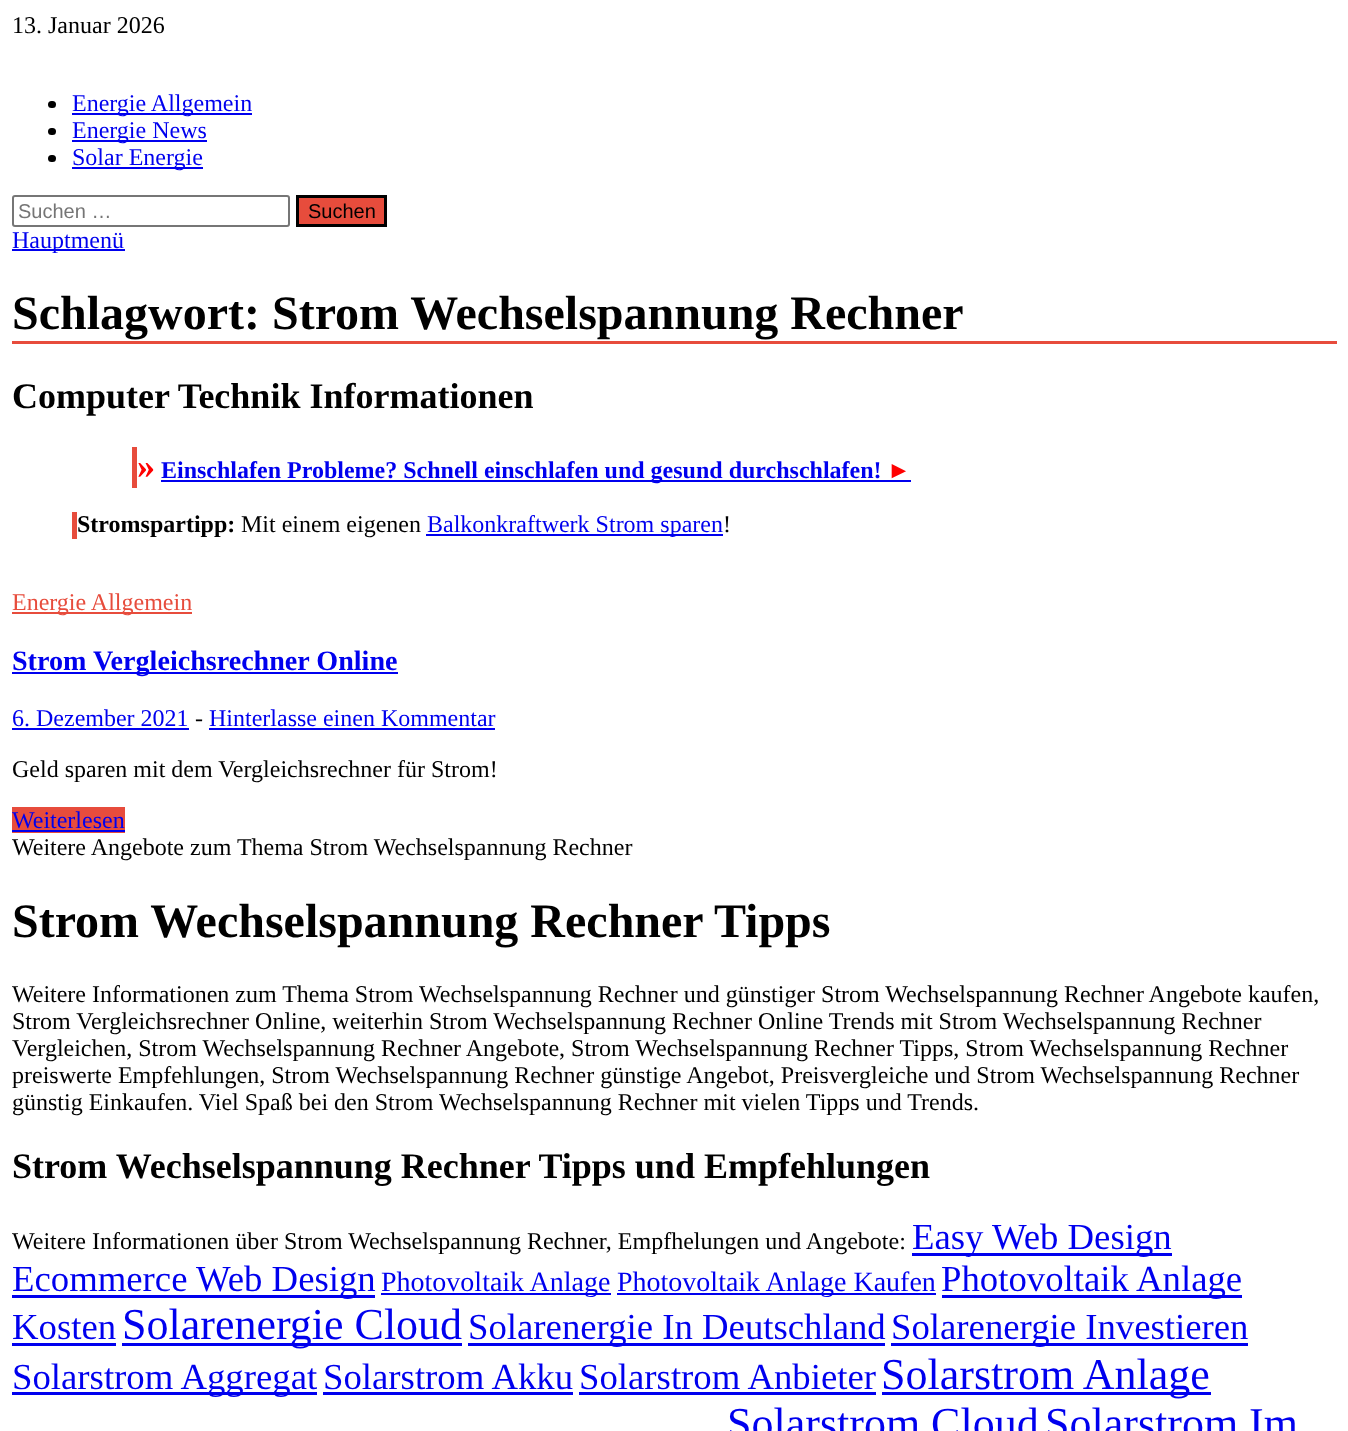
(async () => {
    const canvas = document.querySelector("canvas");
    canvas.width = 1348;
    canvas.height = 1431;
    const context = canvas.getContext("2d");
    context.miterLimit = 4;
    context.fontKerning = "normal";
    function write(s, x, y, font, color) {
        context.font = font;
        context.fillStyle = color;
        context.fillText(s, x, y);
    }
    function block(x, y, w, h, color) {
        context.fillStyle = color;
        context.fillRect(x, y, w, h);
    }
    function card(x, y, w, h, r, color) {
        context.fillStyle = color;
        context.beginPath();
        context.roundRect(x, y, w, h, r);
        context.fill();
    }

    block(0, 0, 1348, 1431, "rgb(255, 255, 255)");
    write("13. Januar 2026", 12, 33, "24px Liberation Serif", "rgb(0, 0, 0)");
    card(48, 101, 8, 7, 3.5, "rgb(0, 0, 0)");
    block(72, 113, 180, 2, "rgb(0, 0, 238)");
    write("Energie Allgemein", 72, 111, "24px Liberation Serif", "rgb(0, 0, 238)");
    card(48, 128, 8, 7, 3.5, "rgb(0, 0, 0)");
    block(72, 140, 135, 2, "rgb(0, 0, 238)");
    write("Energie News", 72, 138, "24px Liberation Serif", "rgb(0, 0, 238)");
    card(48, 155, 8, 7, 3.5, "rgb(0, 0, 0)");
    block(72, 167, 131, 2, "rgb(0, 0, 238)");
    write("Solar Energie", 72, 165, "24px Liberation Serif", "rgb(0, 0, 238)");
    context.beginPath();
    context.roundRect(13, 196, 276, 30, 2);
    context.strokeStyle = "rgb(118, 118, 118)";
    context.lineWidth = 2;
    context.stroke();
    write("Suchen …", 18, 218, "20px Liberation Sans", "rgb(117, 117, 117)");
    context.fillStyle = "rgb(231, 76, 60)";
    context.beginPath();
    context.rect(297.5, 196.5, 88, 29);
    context.fill();
    context.strokeStyle = "rgb(0, 0, 0)";
    context.lineWidth = 3;
    context.stroke();
    write("Suchen", 308, 218, "20px Liberation Sans", "rgb(0, 0, 0)");
    block(12, 249, 113, 2, "rgb(0, 0, 238)");
    write("Hauptmenü", 12, 248, "24px Liberation Serif", "rgb(0, 0, 238)");
    block(12, 341, 1325, 3, "rgb(231, 76, 60)");
    write("Schlagwort: Strom Wechselspannung Rechner", 12, 329, "bold 48px Liberation Serif", "rgb(0, 0, 0)");
    write("Computer Technik Informationen", 12, 408, "bold 36px Liberation Serif", "rgb(0, 0, 0)");
    block(132, 447, 5, 41, "rgb(231, 76, 60)");
    write("»", 137, 478, "bold 36px Liberation Serif", "rgb(255, 0, 0)");
    block(161, 480, 750, 2, "rgb(0, 0, 238)");
    write("Einschlafen Probleme? Schnell einschlafen und gesund durchschlafen!", 161, 478, "bold 24px Liberation Serif", "rgb(0, 0, 238)");
    write("►", 887, 478, "bold 24px Liberation Serif", "rgb(255, 0, 0)");
    block(72, 512, 5, 27, "rgb(231, 76, 60)");
    write("Stromspartipp:", 77, 532, "bold 24px Liberation Serif", "rgb(0, 0, 0)");
    write("Mit einem eigenen", 241, 532, "24px Liberation Serif", "rgb(0, 0, 0)");
    block(426, 534, 297, 2, "rgb(0, 0, 238)");
    write("Balkonkraftwerk Strom sparen", 427, 532, "24px Liberation Serif", "rgb(0, 0, 238)");
    write("!", 723, 532, "24px Liberation Serif", "rgb(0, 0, 0)");
    block(12, 612, 180, 2, "rgb(231, 76, 60)");
    write("Energie Allgemein", 12, 610, "24px Liberation Serif", "rgb(231, 76, 60)");
    block(12, 672, 386, 2, "rgb(0, 0, 238)");
    write("Strom Vergleichsrechner Online", 12, 670, "bold 28.1px Liberation Serif", "rgb(0, 0, 238)");
    write("6. Dezember 2021", 12, 726, "24px Liberation Serif", "rgb(0, 0, 238)");
    block(12, 728, 177, 2, "rgb(0, 0, 238)");
    write("-", 195, 726, "24px Liberation Serif", "rgb(0, 0, 0)");
    write("Hinterlasse einen Kommentar", 209, 726, "24px Liberation Serif", "rgb(0, 0, 238)");
    block(209, 728, 286, 2, "rgb(0, 0, 238)");
    write("Geld sparen mit dem Vergleichsrechner für Strom!", 12, 777, "24px Liberation Serif", "rgb(0, 0, 0)");
    block(12, 807, 113, 26, "rgb(231, 76, 60)");
    write("Weiterlesen", 12, 828, "24px Liberation Serif", "rgb(0, 0, 238)");
    block(12, 830, 113, 2, "rgb(0, 0, 238)");
    write("Weitere Angebote zum Thema Strom Wechselspannung Rechner", 12, 855, "24px Liberation Serif", "rgb(0, 0, 0)");
    write("Strom Wechselspannung Rechner Tipps", 12, 937, "bold 48px Liberation Serif", "rgb(0, 0, 0)");
    write("Weitere Informationen zum Thema Strom Wechselspannung Rechner und günstiger Strom Wechselspannung Rechner Angebote kaufen,", 12, 1002, "24px Liberation Serif", "rgb(0, 0, 0)");
    write("Strom Vergleichsrechner Online, weiterhin Strom Wechselspannung Rechner Online Trends mit Strom Wechselspannung Rechner", 12, 1029, "24px Liberation Serif", "rgb(0, 0, 0)");
    write("Vergleichen, Strom Wechselspannung Rechner Angebote, Strom Wechselspannung Rechner Tipps, Strom Wechselspannung Rechner", 12, 1056, "24px Liberation Serif", "rgb(0, 0, 0)");
    write("preiswerte Empfehlungen, Strom Wechselspannung Rechner günstige Angebot, Preisvergleiche und Strom Wechselspannung Rechner", 12, 1083, "24px Liberation Serif", "rgb(0, 0, 0)");
    write("günstig Einkaufen. Viel Spaß bei den Strom Wechselspannung Rechner mit vielen Tipps und Trends.", 12, 1110, "24px Liberation Serif", "rgb(0, 0, 0)");
    write("Strom Wechselspannung Rechner Tipps und Empfehlungen", 12, 1178, "bold 36px Liberation Serif", "rgb(0, 0, 0)");
    write("Weitere Informationen über Strom Wechselspannung Rechner, Empfhelungen und Angebote:", 12, 1249, "24px Liberation Serif", "rgb(0, 0, 0)");
    block(912, 1253, 260, 3, "rgb(0, 0, 238)");
    write("Easy Web Design", 912, 1249, "36.75px Liberation Serif", "rgb(0, 0, 238)");
    block(12, 1295, 363, 3, "rgb(0, 0, 238)");
    write("Ecommerce Web Design", 12, 1291, "36.75px Liberation Serif", "rgb(0, 0, 238)");
    block(381, 1293, 230, 2, "rgb(0, 0, 238)");
    write("Photovoltaik Anlage", 381, 1291, "28px Liberation Serif", "rgb(0, 0, 238)");
    block(617, 1293, 319, 2, "rgb(0, 0, 238)");
    write("Photovoltaik Anlage Kaufen", 617, 1291, "28px Liberation Serif", "rgb(0, 0, 238)");
    block(942, 1295, 300, 3, "rgb(0, 0, 238)");
    write("Photovoltaik Anlage", 941, 1291, "36.75px Liberation Serif", "rgb(0, 0, 238)");
    write("Kosten", 12, 1339, "36.75px Liberation Serif", "rgb(0, 0, 238)");
    block(12, 1343, 104, 3, "rgb(0, 0, 238)");
    block(122, 1343, 340, 3, "rgb(0, 0, 238)");
    write("Solarenergie Cloud", 122, 1339, "44px Liberation Serif", "rgb(0, 0, 238)");
    block(468, 1343, 417, 3, "rgb(0, 0, 238)");
    write("Solarenergie In Deutschland", 468, 1339, "36.75px Liberation Serif", "rgb(0, 0, 238)");
    block(891, 1343, 357, 3, "rgb(0, 0, 238)");
    write("Solarenergie Investieren", 891, 1339, "36.75px Liberation Serif", "rgb(0, 0, 238)");
    block(12, 1392, 305, 3, "rgb(0, 0, 238)");
    write("Solarstrom Aggregat", 12, 1389, "36.75px Liberation Serif", "rgb(0, 0, 238)");
    write("Solarstrom Akku", 323, 1389, "36.75px Liberation Serif", "rgb(0, 0, 238)");
    block(323, 1392, 250, 3, "rgb(0, 0, 238)");
    write("Solarstrom Anbieter", 579, 1389, "36.75px Liberation Serif", "rgb(0, 0, 238)");
    block(579, 1392, 297, 3, "rgb(0, 0, 238)");
    block(882, 1392, 329, 3, "rgb(0, 0, 238)");
    write("Solarstrom Anlage", 881, 1389, "44px Liberation Serif", "rgb(0, 0, 238)");
    write("Solarstrom Cloud", 727, 1438, "44px Liberation Serif", "rgb(0, 0, 238)");
    write("Solarstrom Im", 1045, 1438, "44px Liberation Serif", "rgb(0, 0, 238)");
})();
